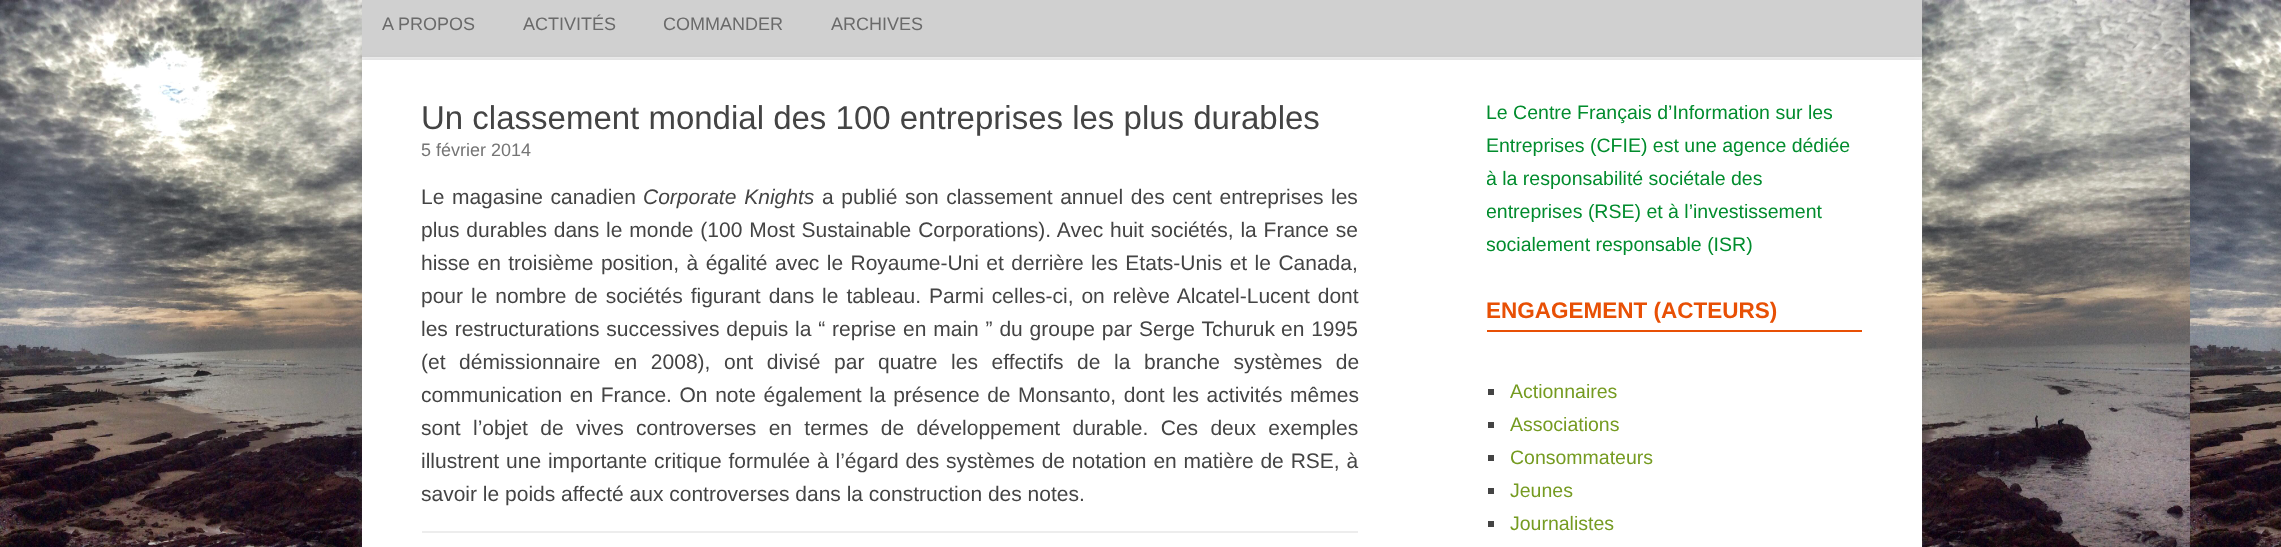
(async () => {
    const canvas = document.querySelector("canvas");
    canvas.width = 2281;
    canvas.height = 547;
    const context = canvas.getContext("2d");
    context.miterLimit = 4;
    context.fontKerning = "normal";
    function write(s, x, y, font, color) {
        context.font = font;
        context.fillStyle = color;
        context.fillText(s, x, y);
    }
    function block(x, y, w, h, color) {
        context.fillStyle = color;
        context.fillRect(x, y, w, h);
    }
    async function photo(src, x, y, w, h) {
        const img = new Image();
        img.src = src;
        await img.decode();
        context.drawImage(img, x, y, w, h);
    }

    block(0, 0, 2281, 547, "rgb(255, 255, 255)");
    await photo("media/1.png", 0, 0, 2281, 547);
    block(362, 0, 1560, 57, "rgb(208, 208, 208)");
    block(362, 57, 1560, 3, "rgb(237, 237, 237)");
    write("A PROPOS", 382, 30, "18px Liberation Sans", "rgb(106, 106, 106)");
    write("ACTIVITÉS", 523, 30, "18px Liberation Sans", "rgb(106, 106, 106)");
    write("COMMANDER", 663, 30, "18px Liberation Sans", "rgb(106, 106, 106)");
    write("ARCHIVES", 831, 30, "18px Liberation Sans", "rgb(106, 106, 106)");
    context.fillStyle = "rgba(100, 100, 100, 0.3)";
    context.filter = "blur(4.5px)";
    context.beginPath();
    context.rect(362, 63, 1560, 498);
    context.fill();
    context.filter = "none";
    block(362, 60, 1560, 487, "rgb(255, 255, 255)");
    write("Un classement mondial des 100 entreprises les plus durables", 421, 129, "33px Liberation Sans", "rgb(68, 68, 68)");
    write("5 février 2014", 421, 156, "18px Liberation Sans", "rgb(117, 117, 117)");
    context.wordSpacing = "1.75px";
    write("Le magasine canadien", 421, 204, "21px Liberation Sans", "rgb(68, 68, 68)");
    context.wordSpacing = "2px";
    write("Corporate Knights", 643, 204, "italic 21px Liberation Sans", "rgb(68, 68, 68)");
    context.wordSpacing = "1.75px";
    write("a publié son classement annuel des cent entreprises les", 822, 204, "21px Liberation Sans", "rgb(68, 68, 68)");
    context.wordSpacing = "1px";
    write("plus durables dans le monde (100 Most Sustainable Corporations). Avec huit sociétés, la France se", 421, 237, "21px Liberation Sans", "rgb(68, 68, 68)");
    context.wordSpacing = "1.6px";
    write("hisse en troisième position, à égalité avec le Royaume-Uni et derrière les Etats-Unis et le Canada,", 421, 270, "21px Liberation Sans", "rgb(68, 68, 68)");
    context.wordSpacing = "2.1px";
    write("pour le nombre de sociétés figurant dans le tableau. Parmi celles-ci, on relève Alcatel-Lucent dont", 421, 303, "21px Liberation Sans", "rgb(68, 68, 68)");
    context.wordSpacing = "1px";
    write("les restructurations successives depuis la “ reprise en main ” du groupe par Serge Tchuruk", 421, 336, "21px Liberation Sans", "rgb(68, 68, 68)");
    write("en 1995", 1281, 336, "21px Liberation Sans", "rgb(68, 68, 68)");
    context.wordSpacing = "7.75px";
    write("(et démissionnaire en 2008), ont divisé par quatre les effectifs de la branche systèmes de", 421, 369, "21px Liberation Sans", "rgb(68, 68, 68)");
    context.wordSpacing = "1.75px";
    write("communication en France. On note également la présence de Monsanto, dont les activités mêmes", 421, 402, "21px Liberation Sans", "rgb(68, 68, 68)");
    context.wordSpacing = "6.5px";
    write("sont l’objet de vives controverses en termes de développement durable. Ces deux exemples", 421, 435, "21px Liberation Sans", "rgb(68, 68, 68)");
    context.wordSpacing = "1px";
    write("illustrent une importante critique formulée à l’égard des systèmes de notation en matière de RSE, à", 421, 468, "21px Liberation Sans", "rgb(68, 68, 68)");
    context.wordSpacing = "0px";
    write("savoir le poids affecté aux controverses dans la construction des notes.", 421, 501, "21px Liberation Sans", "rgb(68, 68, 68)");
    block(422, 531, 936, 2, "rgb(237, 237, 237)");
    write("Le Centre Français d’Information sur les", 1486, 119, "19.5px Liberation Sans", "rgb(1, 140, 45)");
    write("Entreprises (CFIE) est une agence dédiée", 1486, 152, "19.5px Liberation Sans", "rgb(1, 140, 45)");
    context.save();
    context.beginPath();
    context.rect(1487, 96, 375, 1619);
    context.clip();
    write("à la responsabilité sociétale des", 1486, 185, "19.5px Liberation Sans", "rgb(1, 140, 45)");
    write("entreprises (RSE) et à l’investissement", 1486, 218, "19.5px Liberation Sans", "rgb(1, 140, 45)");
    write("socialement responsable (ISR)", 1486, 251, "19.5px Liberation Sans", "rgb(1, 140, 45)");
    context.restore();
    write("ENGAGEMENT (ACTEURS)", 1486, 318, "bold 22.5px Liberation Sans", "rgb(232, 80, 5)");
    block(1487, 330, 375, 2, "rgb(232, 80, 5)");
    block(1488, 389, 6, 6, "rgb(68, 68, 68)");
    write("Actionnaires", 1510, 398, "19.5px Liberation Sans", "rgb(117, 155, 33)");
    block(1488, 422, 6, 6, "rgb(68, 68, 68)");
    write("Associations", 1510, 431, "19.5px Liberation Sans", "rgb(117, 155, 33)");
    block(1488, 455, 6, 6, "rgb(68, 68, 68)");
    write("Consommateurs", 1510, 464, "19.5px Liberation Sans", "rgb(117, 155, 33)");
    block(1488, 488, 6, 6, "rgb(68, 68, 68)");
    write("Jeunes", 1510, 497, "19.5px Liberation Sans", "rgb(117, 155, 33)");
    block(1488, 521, 6, 6, "rgb(68, 68, 68)");
    write("Journalistes", 1510, 530, "19.5px Liberation Sans", "rgb(117, 155, 33)");
})();
